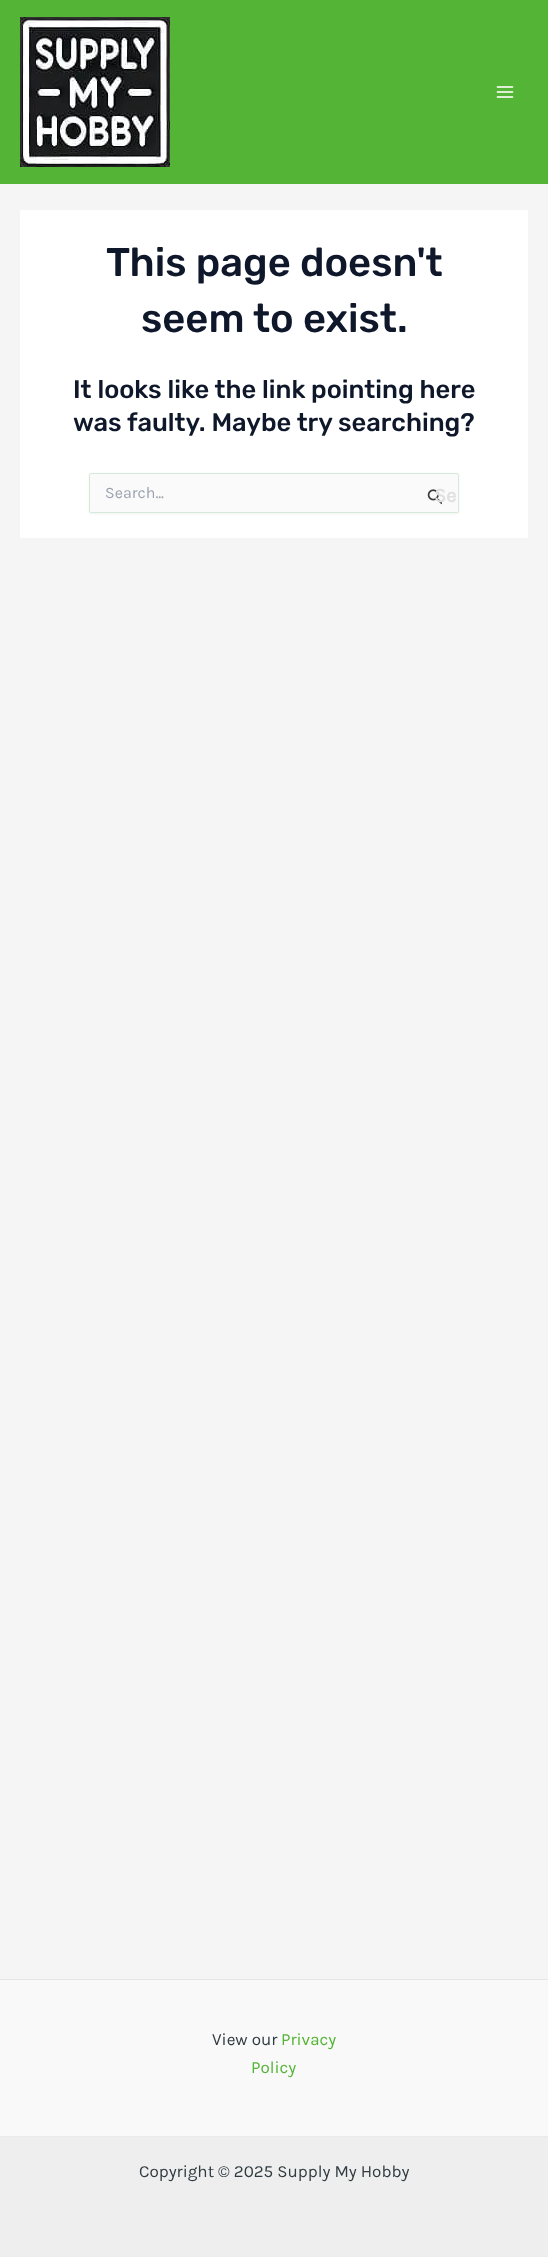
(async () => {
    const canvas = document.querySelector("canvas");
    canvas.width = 548;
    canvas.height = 2257;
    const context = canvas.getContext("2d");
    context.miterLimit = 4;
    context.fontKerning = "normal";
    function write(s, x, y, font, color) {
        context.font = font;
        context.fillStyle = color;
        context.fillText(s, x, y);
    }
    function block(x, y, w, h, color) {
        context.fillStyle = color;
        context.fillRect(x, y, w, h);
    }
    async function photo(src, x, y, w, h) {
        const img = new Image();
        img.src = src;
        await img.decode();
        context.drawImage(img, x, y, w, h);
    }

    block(0, 0, 548, 2257, "rgb(245, 245, 245)");
    block(0, 0, 548, 184, "rgb(84, 180, 53)");
    await photo("media/1.png", 20, 17, 150, 150);
    await photo("media/2.png", 496, 86, 18, 12);
    block(20, 210, 508, 328, "rgb(255, 255, 255)");
    write("This page doesn't", 106, 276, "500 40px Rubik", "rgb(15, 23, 42)");
    write("seem to exist.", 141, 332, "500 40px Rubik", "rgb(15, 23, 42)");
    write("It looks like the link pointing here", 73, 398, "500 25.5px Rubik", "rgb(15, 23, 42)");
    write("was faulty. Maybe try searching?", 73, 431, "500 25.5px Rubik", "rgb(15, 23, 42)");
    context.fillStyle = "rgba(0, 0, 0, 0.05)";
    context.filter = "blur(1px)";
    context.beginPath();
    context.roundRect(89, 474, 370, 40, 2);
    context.fill();
    context.filter = "none";
    context.fillStyle = "rgb(250, 250, 250)";
    context.beginPath();
    context.roundRect(89.5, 473.5, 369, 39, 1.5);
    context.fill();
    context.strokeStyle = "rgb(213, 234, 216)";
    context.stroke();
    write("Search...", 105, 498, "16px Karla", "rgb(156, 163, 175)");
    await photo("media/3.png", 427, 489, 15, 16);
    write("Se", 434, 502, "bold 20px Karla", "rgb(222, 223, 222)");
    block(0, 1980, 548, 156, "rgb(249, 249, 249)");
    block(0, 1979, 548, 1, "rgb(230, 230, 230)");
    write("View our", 212, 2045, "17px Karla", "rgb(47, 59, 64)");
    write("Privacy", 281, 2045, "17px Karla", "rgb(84, 180, 53)");
    write("Policy", 251, 2073, "17px Karla", "rgb(84, 180, 53)");
    block(0, 2137, 548, 120, "rgb(238, 238, 238)");
    block(0, 2136, 548, 1, "rgb(234, 234, 234)");
    write("Copyright © 2025 Supply My Hobby", 139, 2177, "17px Karla", "rgb(47, 59, 64)");
})();
